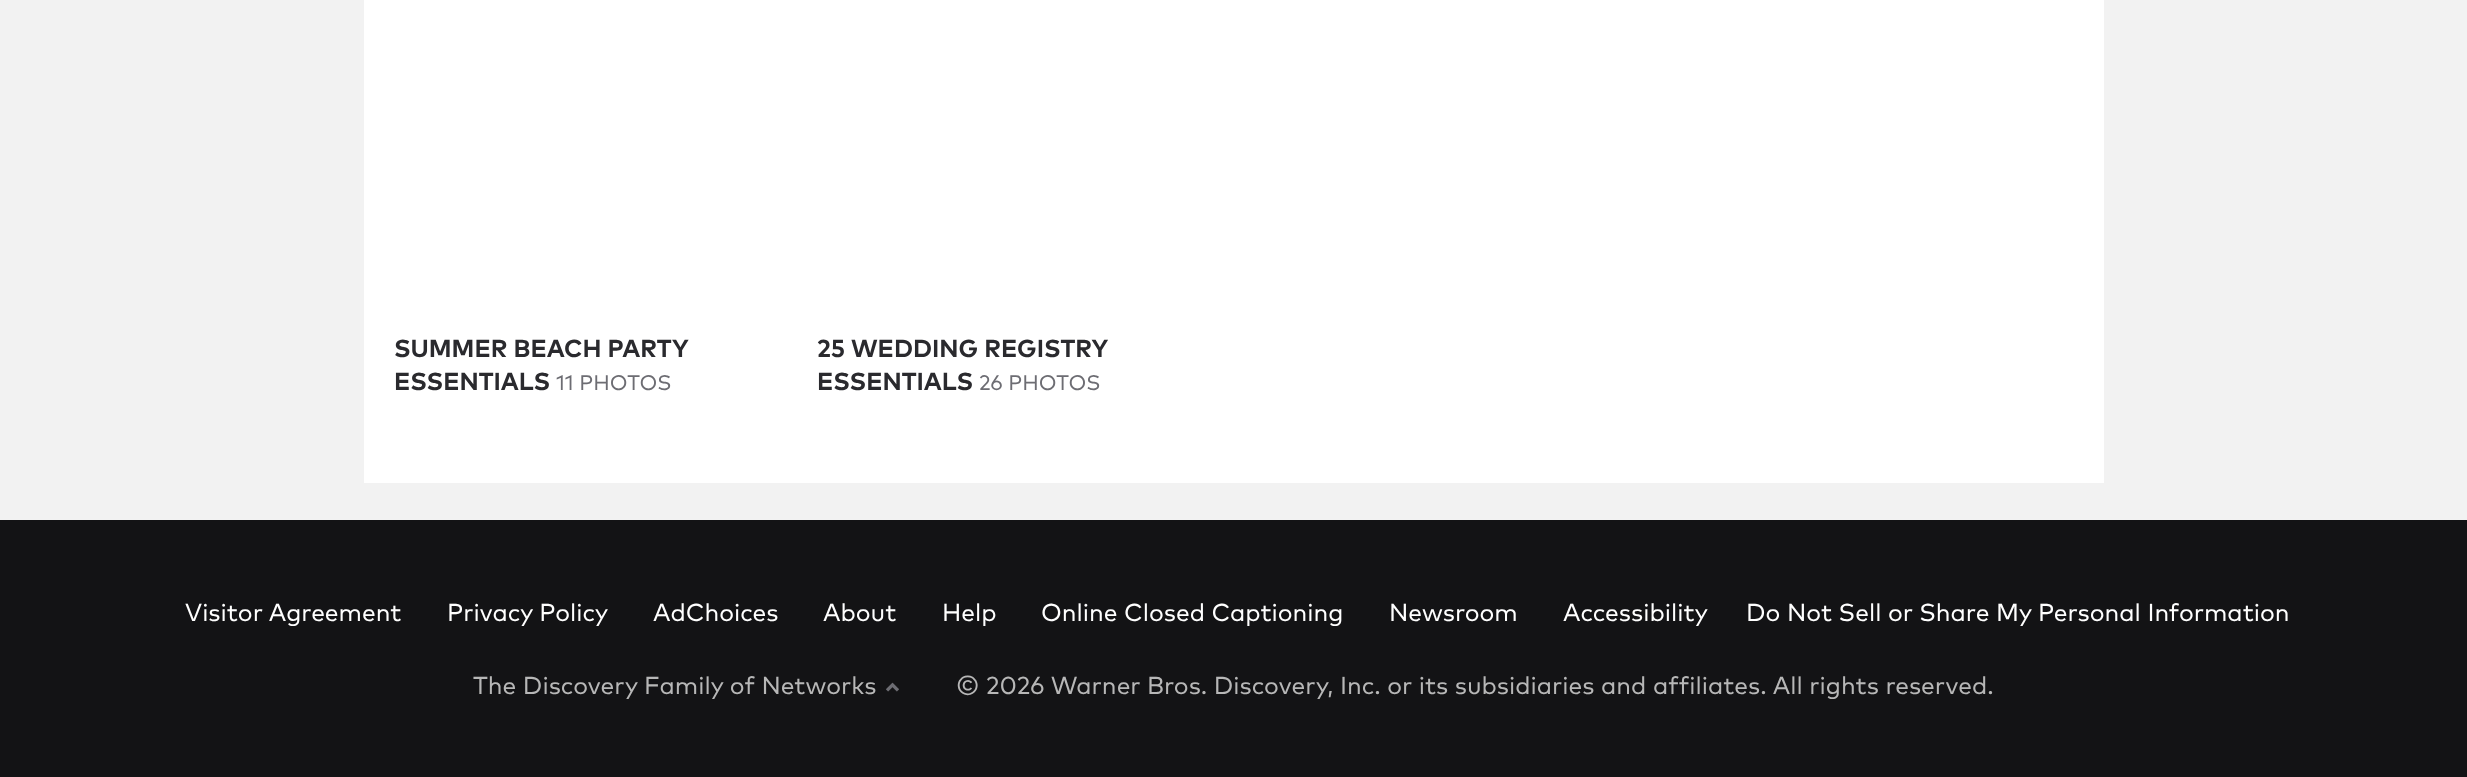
(async () => {
    const canvas = document.querySelector("canvas");
    canvas.width = 2467;
    canvas.height = 777;
    const context = canvas.getContext("2d");
    context.miterLimit = 4;
    context.fontKerning = "normal";
    function write(s, x, y, font, color) {
        context.font = font;
        context.fillStyle = color;
        context.fillText(s, x, y);
    }
    function block(x, y, w, h, color) {
        context.fillStyle = color;
        context.fillRect(x, y, w, h);
    }
    async function photo(src, x, y, w, h) {
        const img = new Image();
        img.src = src;
        await img.decode();
        context.drawImage(img, x, y, w, h);
    }

    block(0, 0, 2467, 777, "rgb(242, 242, 242)");
    block(364, 0, 1740, 483, "rgb(255, 255, 255)");
    write("SUMMER BEACH PARTY", 394, 357, "bold 24.5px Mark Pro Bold", "rgb(42, 42, 46)");
    write("ESSENTIALS", 394, 390, "bold 24.5px Mark Pro Bold", "rgb(42, 42, 46)");
    write("11 PHOTOS", 556, 390, "21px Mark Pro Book", "rgb(109, 109, 115)");
    write("25 WEDDING REGISTRY", 817, 357, "bold 24.5px Mark Pro Bold", "rgb(42, 42, 46)");
    write("ESSENTIALS", 817, 390, "bold 24.5px Mark Pro Bold", "rgb(42, 42, 46)");
    write("26 PHOTOS", 979, 390, "21px Mark Pro Book", "rgb(109, 109, 115)");
    block(0, 520, 2467, 257, "rgb(19, 19, 21)");
    write("Visitor Agreement", 185, 621, "24.5px Mark Pro Book", "rgb(255, 255, 255)");
    write("Privacy Policy", 447, 621, "24.5px Mark Pro Book", "rgb(255, 255, 255)");
    write("AdChoices", 653, 621, "24.5px Mark Pro Book", "rgb(255, 255, 255)");
    write("About", 823, 621, "24.5px Mark Pro Book", "rgb(255, 255, 255)");
    write("Help", 942, 621, "24.5px Mark Pro Book", "rgb(255, 255, 255)");
    write("Online Closed Captioning", 1041, 621, "24.5px Mark Pro Book", "rgb(255, 255, 255)");
    write("Newsroom", 1389, 621, "24.5px Mark Pro Book", "rgb(255, 255, 255)");
    write("Accessibility", 1563, 621, "24.5px Mark Pro Book", "rgb(255, 255, 255)");
    write("Do Not Sell or Share My Personal Information", 1746, 621, "24.5px Mark Pro Book", "rgb(255, 255, 255)");
    write("The Discovery Family of Networks", 473, 694, "24.5px Mark Pro Book", "rgb(183, 183, 183)");
    await photo("media/1.png", 886, 682, 13, 10);
    write("© 2026 Warner Bros. Discovery, Inc. or its subsidiaries and affiliates. All rights reserved.", 956, 694, "24.5px Mark Pro Book", "rgb(183, 183, 183)");
})();
